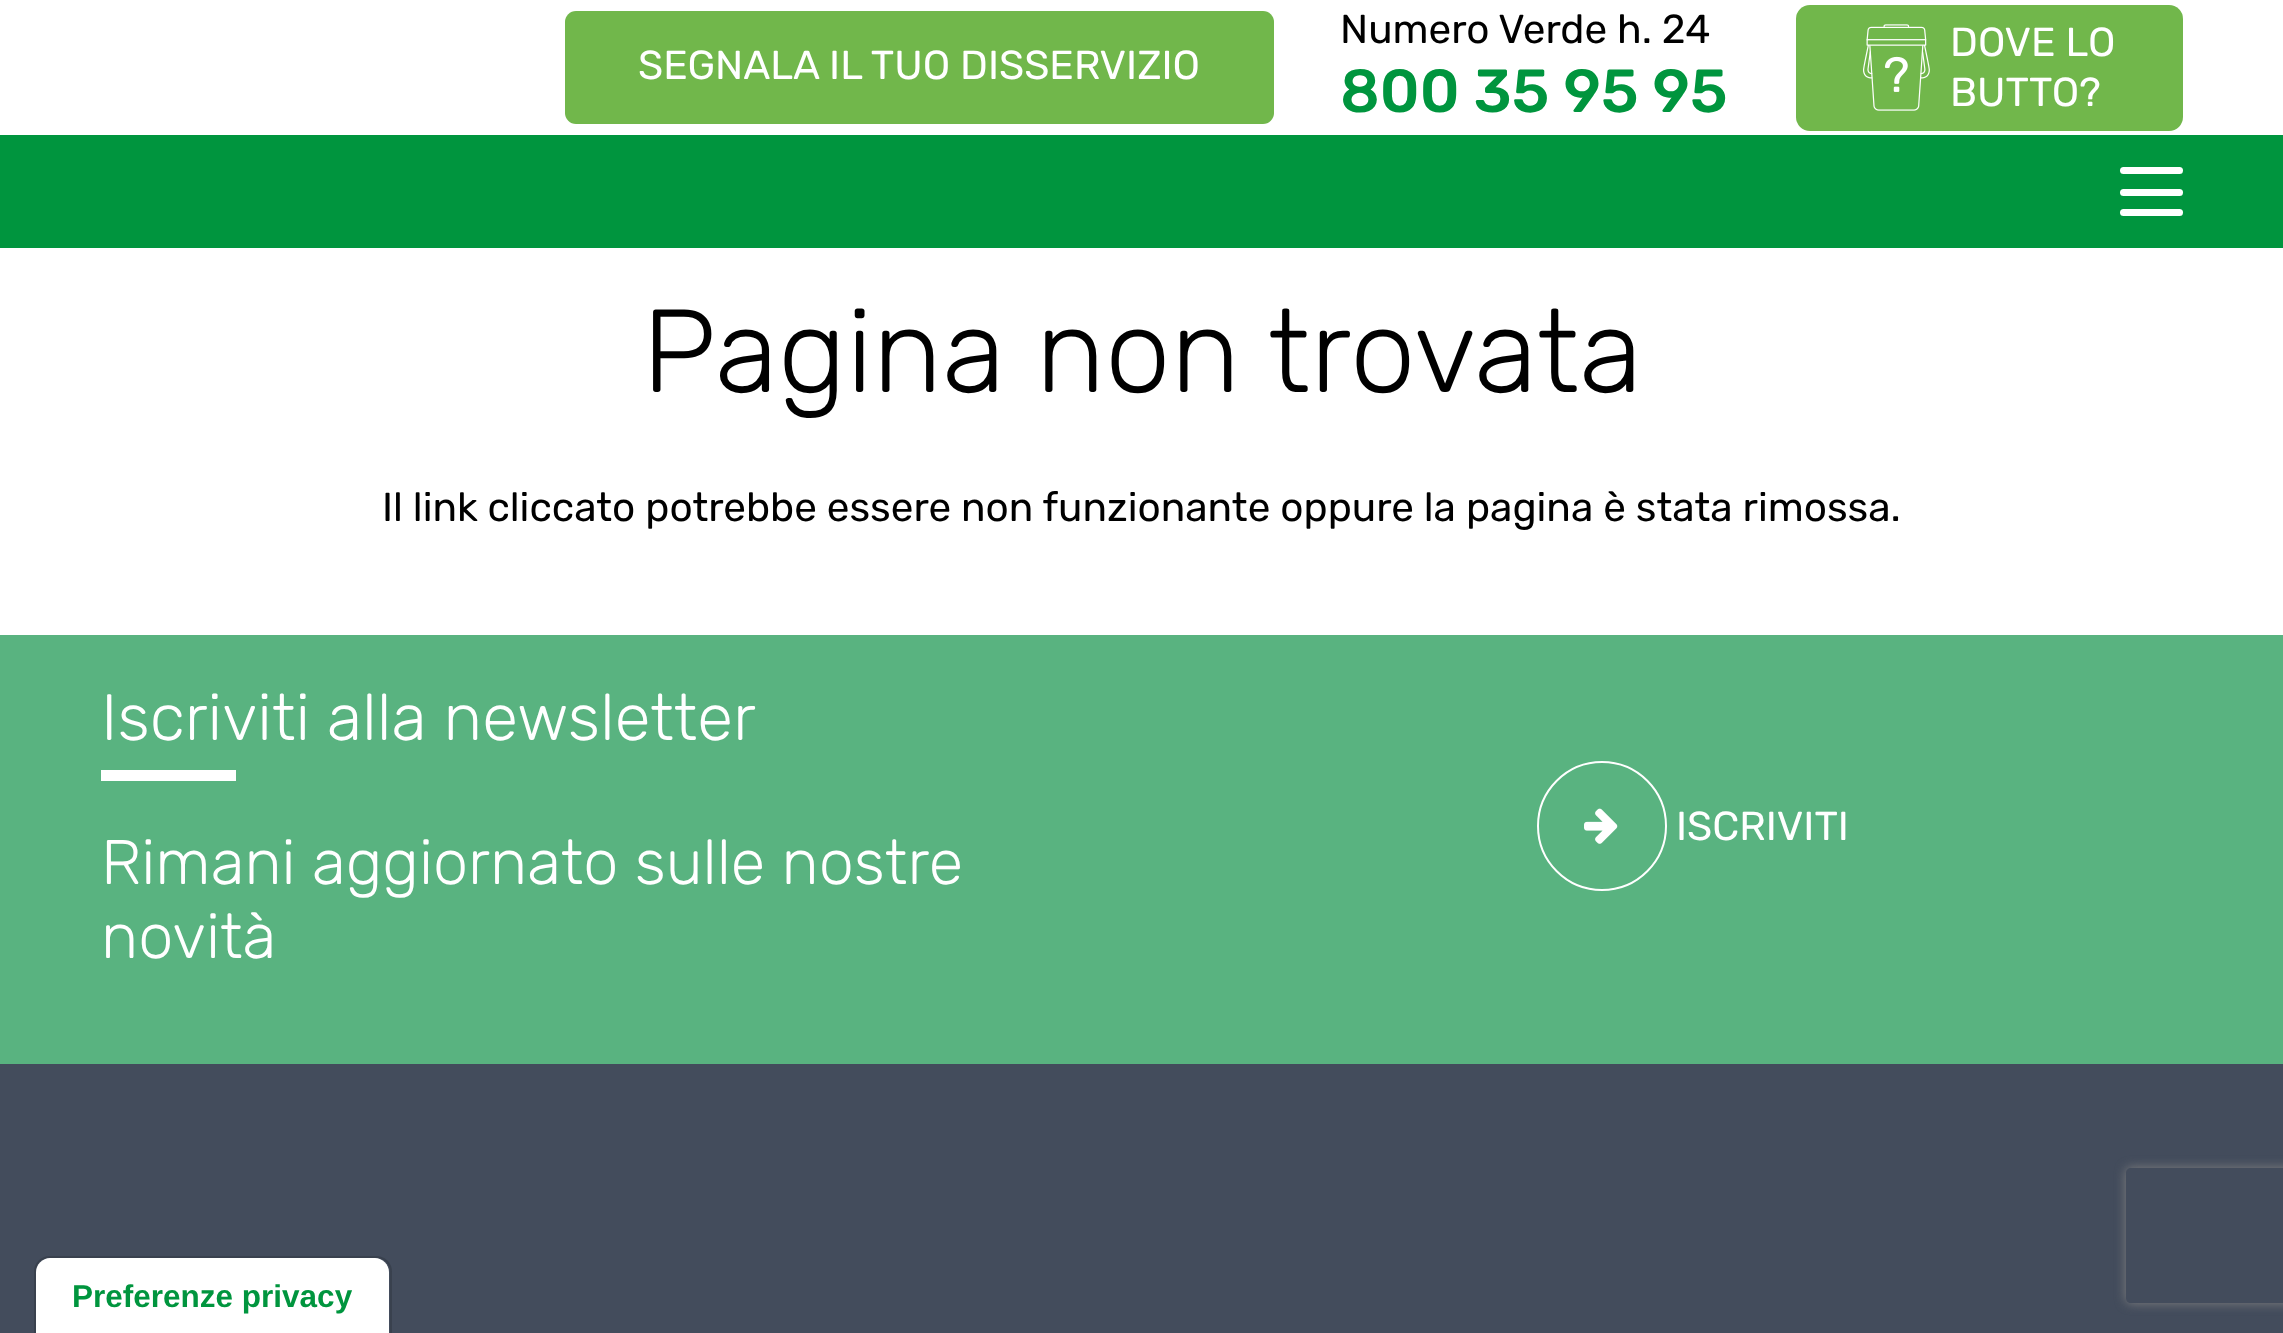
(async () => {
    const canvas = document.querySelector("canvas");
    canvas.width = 2283;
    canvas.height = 1333;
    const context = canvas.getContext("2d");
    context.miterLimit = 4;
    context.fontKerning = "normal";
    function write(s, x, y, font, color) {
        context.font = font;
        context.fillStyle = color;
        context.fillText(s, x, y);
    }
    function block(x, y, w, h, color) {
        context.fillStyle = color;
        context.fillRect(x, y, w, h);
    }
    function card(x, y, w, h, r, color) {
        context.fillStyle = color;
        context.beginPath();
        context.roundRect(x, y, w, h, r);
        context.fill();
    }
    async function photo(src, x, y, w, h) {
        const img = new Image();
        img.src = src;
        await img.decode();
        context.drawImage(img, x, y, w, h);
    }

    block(0, 0, 2283, 1333, "rgb(255, 255, 255)");
    card(565, 11, 709, 113, 11, "rgb(113, 183, 75)");
    write("SEGNALA IL TUO DISSERVIZIO", 638, 79, "40.5px Rubik", "rgb(255, 255, 255)");
    write("Numero Verde h. 24", 1340, 43, "40.5px Rubik", "rgb(0, 0, 0)");
    write("800 35 95 95", 1340, 112, "500 60.75px Rubik", "rgb(0, 149, 62)");
    card(1796, 5, 387, 126, 14, "rgb(113, 183, 75)");
    await photo("media/1.png", 1863, 24, 67, 87);
    write("DOVE LO", 1950, 56, "40.5px Rubik", "rgb(255, 255, 255)");
    write("BUTTO?", 1950, 106, "40.5px Rubik", "rgb(255, 255, 255)");
    block(0, 135, 2283, 113, "rgb(0, 149, 62)");
    card(2120, 189, 63, 7, 3.5, "rgb(255, 255, 255)");
    card(2120, 167, 63, 7, 3.5, "rgb(255, 255, 255)");
    card(2120, 209, 63, 7, 3.5, "rgb(255, 255, 255)");
    write("Pagina non trovata", 642, 392, "300 117.75px Rubik", "rgb(0, 0, 0)");
    write("Il link cliccato potrebbe essere non funzionante oppure la pagina è stata rimossa.", 382, 521, "40.5px Rubik", "rgb(0, 0, 0)");
    block(0, 635, 2283, 429, "rgb(89, 179, 128)");
    write("Iscriviti alla newsletter", 101, 740, "300 65.5px Rubik", "rgb(255, 255, 255)");
    block(101, 770, 135, 11, "rgb(255, 255, 255)");
    write("Rimani aggiornato sulle nostre", 101, 884, "300 63px Rubik", "rgb(255, 255, 255)");
    write("novità", 101, 958, "300 63px Rubik", "rgb(255, 255, 255)");
    context.beginPath();
    context.arc(1602, 826, 64, 0, Math.PI * 2);
    context.strokeStyle = "rgb(255, 255, 255)";
    context.lineWidth = 2;
    context.stroke();
    await photo("media/2.png", 1584, 808, 34, 36);
    write("ISCRIVITI", 1676, 840, "40.5px Rubik", "rgb(255, 255, 255)");
    block(0, 1064, 2283, 269, "rgb(67, 76, 92)");
    context.beginPath();
    context.moveTo(50, 1257);
    context.lineTo(376, 1257);
    context.bezierCurveTo(384.5, 1257, 391, 1263.5, 391, 1272);
    context.lineTo(391, 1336);
    context.lineTo(35, 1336);
    context.lineTo(35, 1272);
    context.bezierCurveTo(35, 1263.5, 41.5, 1257, 50, 1257);
    context.closePath();
    context.strokeStyle = "rgb(57, 65, 78)";
    context.stroke();
    context.fillStyle = "rgb(255, 255, 255)";
    context.beginPath();
    context.moveTo(50, 1258);
    context.lineTo(375, 1258);
    context.bezierCurveTo(382.5, 1258, 389, 1264.5, 389, 1272);
    context.lineTo(389, 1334);
    context.lineTo(36, 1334);
    context.lineTo(36, 1272);
    context.bezierCurveTo(36, 1264.5, 42.5, 1258, 50, 1258);
    context.closePath();
    context.fill();
    write("Preferenze privacy", 72, 1307, "bold 31.5px Liberation Sans", "rgb(0, 149, 62)");
    context.save();
    context.beginPath();
    context.moveTo(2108, 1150);
    context.lineTo(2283, 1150);
    context.lineTo(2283, 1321);
    context.lineTo(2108, 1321);
    context.closePath();
    context.moveTo(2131, 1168);
    context.lineTo(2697, 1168);
    context.bezierCurveTo(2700, 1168, 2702, 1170, 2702, 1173);
    context.lineTo(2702, 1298);
    context.bezierCurveTo(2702, 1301, 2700, 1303, 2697, 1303);
    context.lineTo(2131, 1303);
    context.bezierCurveTo(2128, 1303, 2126, 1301, 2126, 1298);
    context.lineTo(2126, 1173);
    context.bezierCurveTo(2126, 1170, 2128, 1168, 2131, 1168);
    context.closePath();
    context.clip("evenodd");
    context.fillStyle = "rgb(128, 128, 128)";
    context.filter = "blur(5.5px)";
    context.beginPath();
    context.roundRect(2126, 1168, 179, 135, 5);
    context.fill();
    context.filter = "none";
    context.restore();
})();
